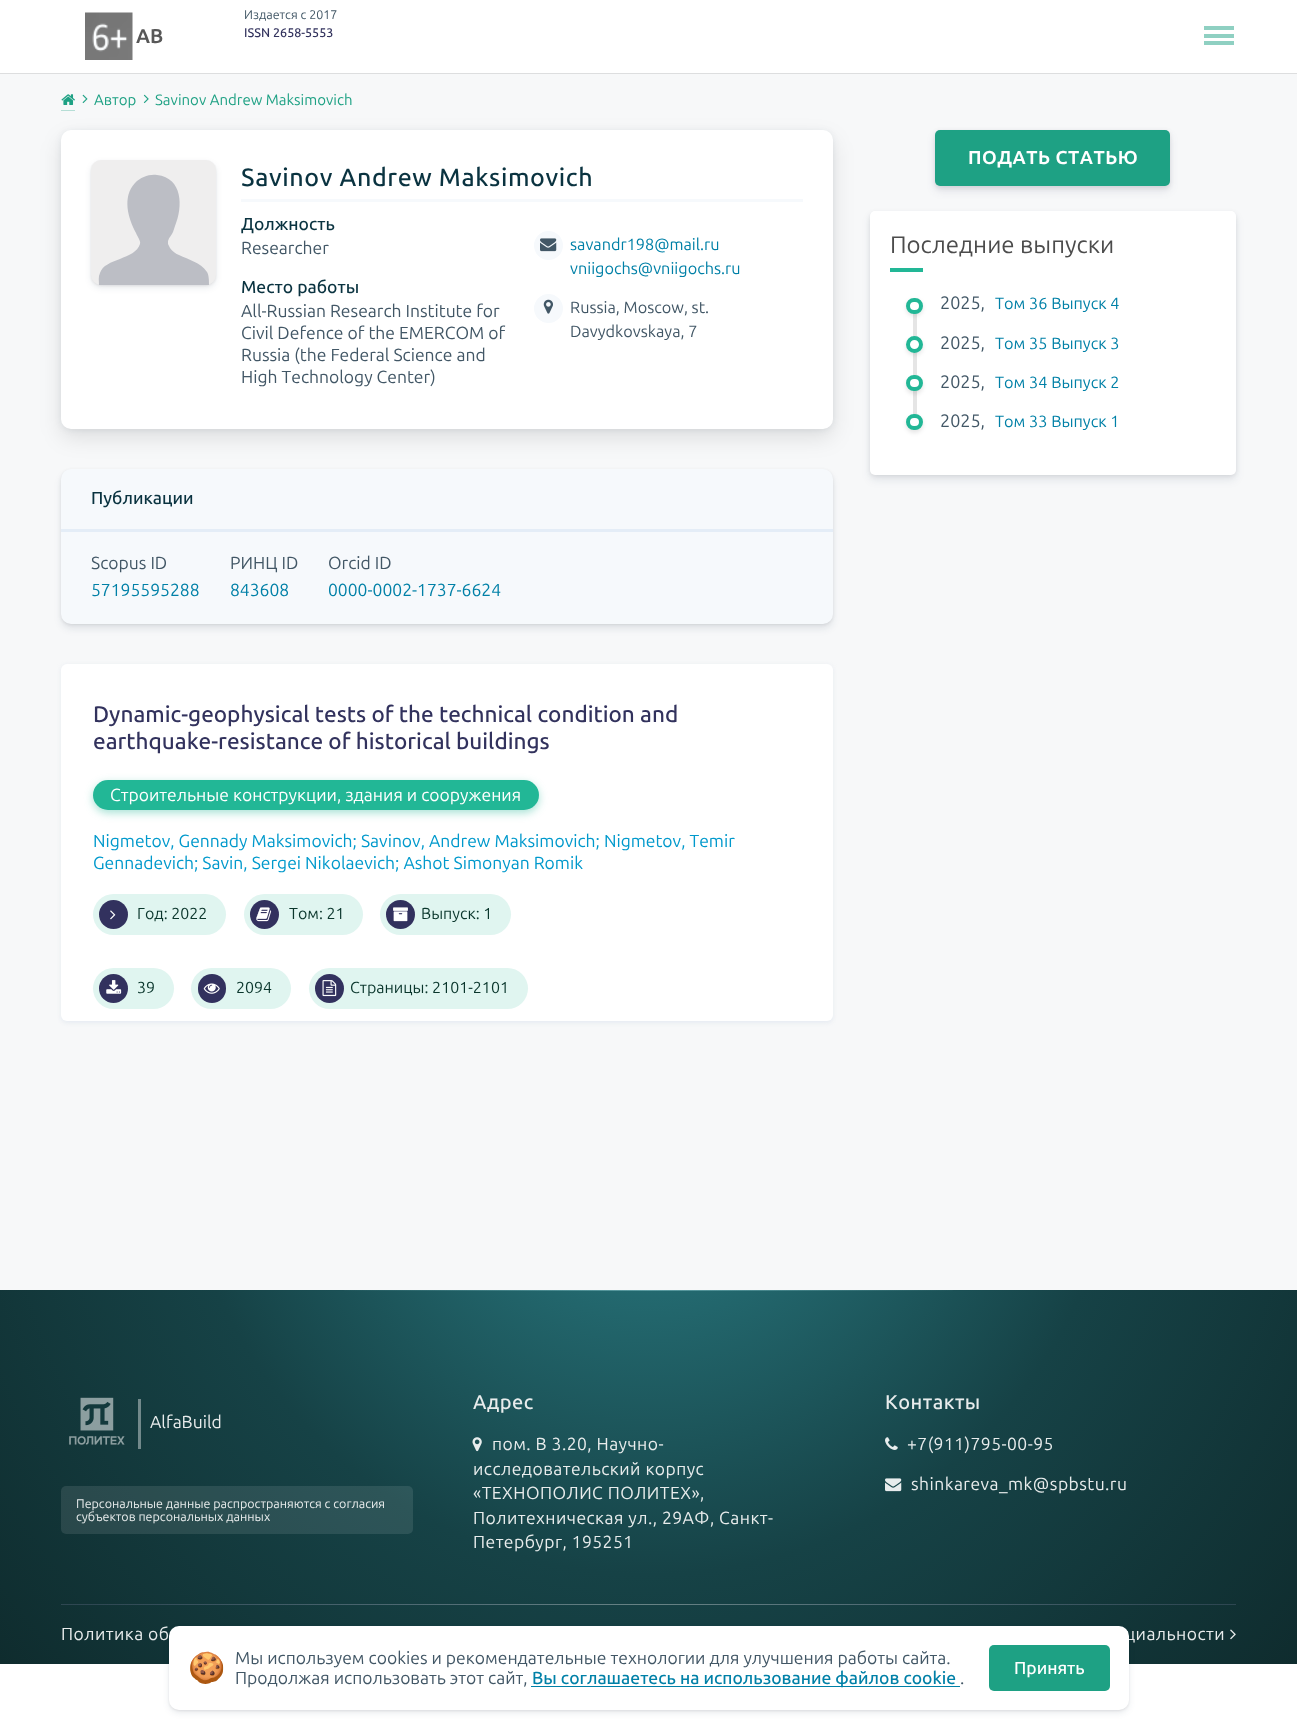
(async () => {
    const canvas = document.querySelector("canvas");
    canvas.width = 1297;
    canvas.height = 1734;
    const context = canvas.getContext("2d");
    context.miterLimit = 4;
    context.fontKerning = "none";
    function write(s, x, y, font, color) {
        context.font = font;
        context.fillStyle = color;
        context.fillText(s, x, y);
    }
    function block(x, y, w, h, color) {
        context.fillStyle = color;
        context.fillRect(x, y, w, h);
    }
    function card(x, y, w, h, r, color) {
        context.fillStyle = color;
        context.beginPath();
        context.roundRect(x, y, w, h, r);
        context.fill();
    }
    async function photo(src, x, y, w, h) {
        const img = new Image();
        img.src = src;
        await img.decode();
        context.drawImage(img, x, y, w, h);
    }
    let gradient;

    block(0, 0, 1297, 1734, "rgb(255, 255, 255)");
    block(0, 73, 1297, 1217, "rgb(247, 248, 249)");
    context.fillStyle = "rgba(0, 0, 0, 0.1)";
    context.filter = "blur(0.5px)";
    context.beginPath();
    context.rect(0, 1, 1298, 73);
    context.fill();
    context.filter = "none";
    block(0, 0, 1297, 73, "rgb(255, 255, 255)");
    await photo("media/1.png", 85, 12, 48, 48);
    write("AB", 136, 43, "bold 20px Ubuntu", "rgb(88, 88, 88)");
    write("Издается с 2017", 244, 19, "12.5px Ubuntu", "rgb(66, 87, 102)");
    write("ISSN 2658-5553", 244, 37, "500 12.5px Ubuntu", "rgb(50, 50, 93)");
    block(1204, 34, 30, 4, "rgb(143, 208, 194)");
    block(1204, 26, 30, 4, "rgb(143, 208, 194)");
    block(1204, 41, 30, 4, "rgb(143, 208, 194)");
    block(61, 110, 14, 1, "rgb(182, 222, 214)");
    await photo("media/2.png", 61, 94, 14, 11);
    await photo("media/3.png", 82, 94, 6, 10);
    write("Автор", 94, 105, "15px Ubuntu", "rgb(30, 161, 132)");
    await photo("media/4.png", 143, 94, 6, 10);
    write("Savinov Andrew Maksimovich", 155, 105, "15px Ubuntu", "rgb(30, 161, 132)");
    context.fillStyle = "rgba(0, 0, 0, 0.08)";
    context.filter = "blur(1.5px)";
    context.beginPath();
    context.roundRect(61, 470, 772, 155, 10);
    context.fill();
    context.filter = "none";
    context.fillStyle = "rgba(10, 37, 64, 0.09)";
    context.filter = "blur(3.5px)";
    context.beginPath();
    context.roundRect(61, 474, 772, 155, 10);
    context.fill();
    context.filter = "none";
    card(61, 469, 772, 155, 10, "rgb(246, 249, 252)");
    context.fillStyle = "rgba(0, 0, 0, 0.1)";
    context.filter = "blur(10.5px)";
    context.beginPath();
    context.roundRect(61, 139, 772, 299, 10);
    context.fill();
    context.filter = "none";
    context.fillStyle = "rgba(10, 37, 64, 0.07)";
    context.filter = "blur(3px)";
    context.beginPath();
    context.roundRect(61, 131, 772, 299, 10);
    context.fill();
    context.filter = "none";
    card(61, 130, 772, 299, 10, "rgb(255, 255, 255)");
    context.fillStyle = "rgba(0, 0, 0, 0.07)";
    context.filter = "blur(1px)";
    context.beginPath();
    context.roundRect(91, 161, 125, 125, 10);
    context.fill();
    context.filter = "none";
    context.fillStyle = "rgba(10, 37, 64, 0.09)";
    context.filter = "blur(3px)";
    context.beginPath();
    context.roundRect(91, 163, 125, 125, 10);
    context.fill();
    context.filter = "none";
    card(91, 160, 125, 125, 10, "rgb(239, 238, 238)");
    context.fillStyle = "rgb(188, 190, 197)";
    context.beginPath();
    context.moveTo(101, 285);
    context.lineTo(206, 285);
    context.lineTo(209, 285);
    context.bezierCurveTo(209, 281, 209, 275, 207, 272);
    context.bezierCurveTo(200, 262, 189, 260, 179, 255);
    context.bezierCurveTo(176, 254, 172, 251, 170, 248);
    context.lineTo(168, 244);
    context.lineTo(168, 241);
    context.bezierCurveTo(169, 237, 172, 235, 173, 232);
    context.lineTo(175, 226);
    context.bezierCurveTo(183, 207, 183, 178, 157, 175);
    context.bezierCurveTo(149, 174, 141, 177, 135, 183);
    context.bezierCurveTo(122, 197, 128, 218, 136, 233);
    context.bezierCurveTo(137, 236, 141, 241, 140, 244);
    context.bezierCurveTo(135, 260, 105, 258, 100, 273);
    context.bezierCurveTo(98, 277, 99, 281, 99, 285);
    context.closePath();
    context.fill();
    block(241, 199, 562, 3, "rgb(246, 249, 252)");
    context.letterSpacing = "0.6px";
    write("Savinov Andrew Maksimovich", 241, 186, "500 25px Ubuntu", "rgb(10, 51, 64)");
    context.letterSpacing = "0px";
    write("Должность", 241, 230, "500 17.5px Ubuntu", "rgb(10, 51, 64)");
    write("Researcher", 241, 254, "17.5px Ubuntu", "rgb(66, 87, 102)");
    write("Место работы", 241, 293, "500 17.5px Ubuntu", "rgb(10, 51, 64)");
    write("All-Russian Research Institute for", 241, 317, "17.5px Ubuntu", "rgb(66, 87, 102)");
    write("Civil Defence of the EMERCOM of", 241, 339, "17.5px Ubuntu", "rgb(66, 87, 102)");
    write("Russia (the Federal Science and", 241, 361, "17.5px Ubuntu", "rgb(66, 87, 102)");
    write("High Technology Center)", 241, 383, "17.5px Ubuntu", "rgb(66, 87, 102)");
    context.fillStyle = "rgb(246, 249, 252)";
    context.beginPath();
    context.arc(548.5, 245.5, 14.5, 0, Math.PI * 2);
    context.fill();
    await photo("media/5.png", 540, 238, 17, 14);
    write("savandr198@mail.ru", 570, 250, "16.25px Ubuntu", "rgb(0, 128, 167)");
    write("vniigochs@vniigochs.ru", 570, 274, "16.25px Ubuntu", "rgb(0, 128, 167)");
    context.fillStyle = "rgb(246, 249, 252)";
    context.beginPath();
    context.arc(548.5, 308.5, 14.5, 0, Math.PI * 2);
    context.fill();
    await photo("media/6.png", 543, 299, 10, 15);
    write("Russia, Moscow, st.", 570, 313, "16.25px Ubuntu", "rgb(66, 87, 102)");
    write("Davydkovskaya, 7", 570, 337, "16.25px Ubuntu", "rgb(66, 87, 102)");
    block(61, 529, 772, 3, "rgb(228, 237, 247)");
    write("Публикации", 91, 504, "500 17.5px Ubuntu", "rgb(10, 51, 64)");
    write("Scopus ID", 91, 569, "17.5px Ubuntu", "rgb(66, 87, 102)");
    write("57195595288", 91, 596, "17.5px Ubuntu", "rgb(0, 128, 167)");
    write("РИНЦ ID", 230, 569, "17.5px Ubuntu", "rgb(66, 87, 102)");
    write("843608", 230, 596, "17.5px Ubuntu", "rgb(0, 128, 167)");
    write("Orcid ID", 328, 569, "17.5px Ubuntu", "rgb(66, 87, 102)");
    write("0000-0002-1737-6624", 328, 596, "17.5px Ubuntu", "rgb(0, 128, 167)");
    context.fillStyle = "rgb(230, 235, 241)";
    context.filter = "blur(2px)";
    context.beginPath();
    context.roundRect(61, 665, 772, 358, 6);
    context.fill();
    context.filter = "none";
    card(61, 664, 772, 357, 6, "rgb(255, 255, 255)");
    write("Dynamic-geophysical tests of the technical condition and", 93, 722, "500 22.5px Ubuntu", "rgb(50, 50, 93)");
    write("earthquake-resistance of historical buildings", 93, 749, "500 22.5px Ubuntu", "rgb(50, 50, 93)");
    context.fillStyle = "rgba(34, 183, 150, 0.4)";
    context.filter = "blur(4px)";
    context.beginPath();
    context.roundRect(93, 783, 446, 30, 15);
    context.fill();
    context.filter = "none";
    card(93, 780, 446, 30, 15, "rgb(34, 183, 150)");
    write("Строительные конструкции, здания и сооружения", 110, 801, "17.5px Ubuntu", "rgb(255, 255, 255)");
    write("Nigmetov, Gennady Maksimovich; Savinov, Andrew Maksimovich; Nigmetov, Temir", 93, 847, "17.5px Ubuntu", "rgb(0, 153, 204)");
    write("Gennadevich; Savin, Sergei Nikolaevich; Ashot Simonyan Romik", 93, 869, "17.5px Ubuntu", "rgb(0, 153, 204)");
    card(93, 894, 133, 41, 20.5, "rgb(224, 245, 240)");
    context.fillStyle = "rgb(50, 49, 94)";
    context.beginPath();
    context.arc(113.5, 914.5, 14.5, 0, Math.PI * 2);
    context.fill();
    await photo("media/7.png", 110, 910, 6, 10);
    write("Год: 2022", 137, 919, "16px Ubuntu", "rgb(10, 54, 44)");
    card(244, 894, 119, 41, 20.5, "rgb(224, 245, 240)");
    context.fillStyle = "rgb(50, 49, 94)";
    context.beginPath();
    context.arc(264.5, 914.5, 14.5, 0, Math.PI * 2);
    context.fill();
    await photo("media/8.png", 256, 907, 16, 15);
    write("Том: 21", 289, 919, "16px Ubuntu", "rgb(10, 54, 44)");
    card(380, 894, 131, 41, 20.5, "rgb(224, 245, 240)");
    context.fillStyle = "rgb(50, 49, 94)";
    context.beginPath();
    context.arc(400.5, 914.5, 14.5, 0, Math.PI * 2);
    context.fill();
    await photo("media/9.png", 393, 907, 15, 15);
    write("Выпуск: 1", 421, 919, "16px Ubuntu", "rgb(10, 54, 44)");
    card(93, 968, 81, 41, 20.5, "rgb(224, 245, 240)");
    context.fillStyle = "rgb(50, 49, 94)";
    context.beginPath();
    context.arc(113.5, 988.5, 14.5, 0, Math.PI * 2);
    context.fill();
    await photo("media/10.png", 106, 980, 16, 14);
    write("39", 137, 993, "16px Ubuntu", "rgb(10, 54, 44)");
    card(191, 968, 100, 41, 20.5, "rgb(224, 245, 240)");
    card(198, 974, 28, 29, 14, "rgb(50, 49, 94)");
    await photo("media/11.png", 203, 983, 17, 11);
    write("2094", 236, 993, "16px Ubuntu", "rgb(10, 54, 44)");
    card(309, 968, 219, 41, 20.5, "rgb(224, 245, 240)");
    context.fillStyle = "rgb(50, 49, 94)";
    context.beginPath();
    context.arc(329.5, 988.5, 14.5, 0, Math.PI * 2);
    context.fill();
    await photo("media/12.png", 322, 980, 15, 17);
    write("Страницы: 2101-2101", 350, 993, "16px Ubuntu", "rgb(10, 54, 44)");
    context.fillStyle = "rgba(0, 0, 0, 0.08)";
    context.filter = "blur(2px)";
    context.beginPath();
    context.roundRect(935, 131, 235, 57, 5);
    context.fill();
    context.filter = "none";
    context.fillStyle = "rgba(50, 50, 93, 0.11)";
    context.filter = "blur(4px)";
    context.beginPath();
    context.roundRect(935, 135, 235, 56, 5);
    context.fill();
    context.filter = "none";
    card(935, 130, 235, 56, 5, "rgb(30, 161, 132)");
    context.letterSpacing = "0.5px";
    write("ПОДАТЬ СТАТЬЮ", 968, 164, "bold 18.75px Ubuntu", "rgb(255, 255, 255)");
    context.fillStyle = "rgba(0, 0, 0, 0.08)";
    context.filter = "blur(2px)";
    context.beginPath();
    context.roundRect(870, 213, 366, 263, 5);
    context.fill();
    context.filter = "none";
    context.fillStyle = "rgba(10, 37, 64, 0.09)";
    context.filter = "blur(4px)";
    context.beginPath();
    context.roundRect(870, 216, 366, 264, 5);
    context.fill();
    context.filter = "none";
    card(870, 211, 366, 264, 5, "rgb(255, 255, 255)");
    context.letterSpacing = "0px";
    write("Последние выпуски", 890, 253, "24px Ubuntu", "rgb(76, 76, 76)");
    block(890, 268, 33, 4, "rgb(34, 183, 150)");
    block(913, 313, 4, 117, "rgb(229, 229, 229)");
    context.fillStyle = "rgba(0, 0, 0, 0.1)";
    context.filter = "blur(2px)";
    context.beginPath();
    context.roundRect(906, 300, 17, 16, 8);
    context.fill();
    context.filter = "none";
    context.fillStyle = "rgb(255, 255, 255)";
    context.beginPath();
    context.roundRect(908, 300, 13, 12, 6);
    context.fill();
    context.strokeStyle = "rgb(34, 183, 150)";
    context.lineWidth = 4;
    context.stroke();
    write("2025,", 940, 309, "18px Ubuntu", "rgb(66, 87, 102)");
    write("Том 36 Выпуск 4", 995, 309, "16.25px Ubuntu", "rgb(0, 128, 167)");
    context.fillStyle = "rgba(0, 0, 0, 0.1)";
    context.filter = "blur(2px)";
    context.beginPath();
    context.roundRect(906, 339, 17, 16, 8);
    context.fill();
    context.filter = "none";
    context.fillStyle = "rgb(255, 255, 255)";
    context.beginPath();
    context.arc(914.5, 344.5, 6.5, 0, Math.PI * 2);
    context.fill();
    context.stroke();
    write("2025,", 940, 349, "18px Ubuntu", "rgb(66, 87, 102)");
    write("Том 35 Выпуск 3", 995, 349, "16.25px Ubuntu", "rgb(0, 128, 167)");
    context.fillStyle = "rgba(0, 0, 0, 0.1)";
    context.filter = "blur(2px)";
    context.beginPath();
    context.roundRect(906, 378, 17, 16, 8);
    context.fill();
    context.filter = "none";
    context.fillStyle = "rgb(255, 255, 255)";
    context.beginPath();
    context.roundRect(908, 377, 13, 12, 6);
    context.fill();
    context.stroke();
    write("2025,", 940, 388, "18px Ubuntu", "rgb(66, 87, 102)");
    write("Том 34 Выпуск 2", 995, 388, "16.25px Ubuntu", "rgb(0, 128, 167)");
    context.fillStyle = "rgba(0, 0, 0, 0.1)";
    context.filter = "blur(2px)";
    context.beginPath();
    context.roundRect(906, 416, 17, 17, 8.5);
    context.fill();
    context.filter = "none";
    context.fillStyle = "rgb(255, 255, 255)";
    context.beginPath();
    context.roundRect(908, 416, 13, 12, 6);
    context.fill();
    context.stroke();
    write("2025,", 940, 427, "18px Ubuntu", "rgb(66, 87, 102)");
    write("Том 33 Выпуск 1", 995, 427, "16.25px Ubuntu", "rgb(0, 128, 167)");
    gradient = context.createRadialGradient(649, 1103, 0, 649, 1103, 857);
    gradient.addColorStop(0.1, "rgb(40, 119, 126)");
    gradient.addColorStop(0.55, "rgb(22, 66, 70)");
    gradient.addColorStop(1, "rgb(15, 44, 46)");
    context.fillStyle = gradient;
    context.fillRect(0, 1290, 1297, 374);
    gradient = context.createLinearGradient(7.5, 1221, 1290, 1360);
    gradient.addColorStop(0.25, "rgba(196, 250, 255, 0)");
    gradient.addColorStop(0.5, "rgba(196, 250, 255, 0.35)");
    gradient.addColorStop(0.75, "rgba(196, 250, 255, 0)");
    context.fillStyle = gradient;
    context.fillRect(344, 1290, 609, 1);
    await photo("media/13.png", 69, 1397, 56, 48);
    block(138, 1399, 3, 50, "rgb(114, 137, 139)");
    write("AlfaBuild", 150, 1428, "17.5px Ubuntu", "rgb(232, 236, 236)");
    card(61, 1486, 352, 48, 5, "rgba(255, 255, 255, 0.1)");
    write("Персональные данные распространяются с согласия", 76, 1508, "12.5px Ubuntu", "rgb(232, 236, 236)");
    write("субъектов персональных данных", 76, 1521, "12.5px Ubuntu", "rgb(232, 236, 236)");
    context.letterSpacing = "0.5px";
    write("Адрес", 473, 1409, "500 20px Ubuntu", "rgb(232, 236, 236)");
    await photo("media/14.png", 472, 1437, 10, 15);
    context.letterSpacing = "0.45px";
    write("пом. В 3.20, Научно-", 492, 1450, "17.5px Ubuntu", "rgb(232, 236, 236)");
    write("исследовательский корпус", 473, 1475, "17.5px Ubuntu", "rgb(232, 236, 236)");
    write("«ТЕХНОПОЛИС ПОЛИТЕХ»,", 473, 1499, "17.5px Ubuntu", "rgb(232, 236, 236)");
    write("Политехническая ул., 29АФ, Санкт-", 473, 1524, "17.5px Ubuntu", "rgb(232, 236, 236)");
    write("Петербург, 195251", 473, 1548, "17.5px Ubuntu", "rgb(232, 236, 236)");
    context.letterSpacing = "0.5px";
    write("Контакты", 885, 1409, "500 20px Ubuntu", "rgb(232, 236, 236)");
    await photo("media/15.png", 885, 1437, 13, 13);
    context.letterSpacing = "0.45px";
    write("+7(911)795-00-95", 907, 1450, "17.5px Ubuntu", "rgb(232, 236, 236)");
    await photo("media/16.png", 885, 1478, 17, 14);
    write("shinkareva_mk@spbstu.ru", 911, 1490, "17.5px Ubuntu", "rgb(232, 236, 236)");
    gradient = context.createLinearGradient(68, 1543, 1230, 1665);
    gradient.addColorStop(0.03, "rgba(215, 196, 255, 0.15)");
    gradient.addColorStop(0.5, "rgba(255, 255, 255, 0.35)");
    gradient.addColorStop(0.97, "rgba(215, 196, 255, 0.15)");
    context.fillStyle = gradient;
    context.fillRect(61, 1604, 1175, 1);
    write("Политика об", 61, 1640, "17.5px Ubuntu", "rgb(232, 236, 236)");
    write("циальности", 1125, 1640, "17.5px Ubuntu", "rgb(232, 236, 236)");
    await photo("media/17.png", 1230, 1629, 6, 11);
    context.fillStyle = "rgba(0, 0, 0, 0.07)";
    context.filter = "blur(1px)";
    context.beginPath();
    context.roundRect(169, 1628, 960, 83, 10);
    context.fill();
    context.filter = "none";
    context.fillStyle = "rgba(10, 37, 64, 0.09)";
    context.filter = "blur(3px)";
    context.beginPath();
    context.roundRect(169, 1629, 960, 84, 10);
    context.fill();
    context.filter = "none";
    card(169, 1626, 960, 84, 10, "rgb(255, 255, 255)");
    context.letterSpacing = "0px";
    write("🍪", 188, 1678, "30px Noto Color Emoji", "rgb(66, 87, 102)");
    write("Мы используем cookies и рекомендательные технологии для улучшения работы сайта.", 235, 1664, "17.5px Ubuntu", "rgb(66, 87, 102)");
    write("Продолжая использовать этот сайт,", 235, 1684, "17.5px Ubuntu", "rgb(66, 87, 102)");
    block(531, 1686, 429, 1, "rgb(0, 128, 167)");
    write("Вы соглашаетесь на использование файлов cookie", 532, 1684, "500 17.5px Ubuntu", "rgb(0, 128, 167)");
    write(".", 960, 1684, "17.5px Ubuntu", "rgb(66, 87, 102)");
    card(989, 1645, 121, 46, 5, "rgb(30, 161, 132)");
    write("Принять", 1014, 1674, "500 17.5px Ubuntu", "rgb(255, 255, 255)");
})();
